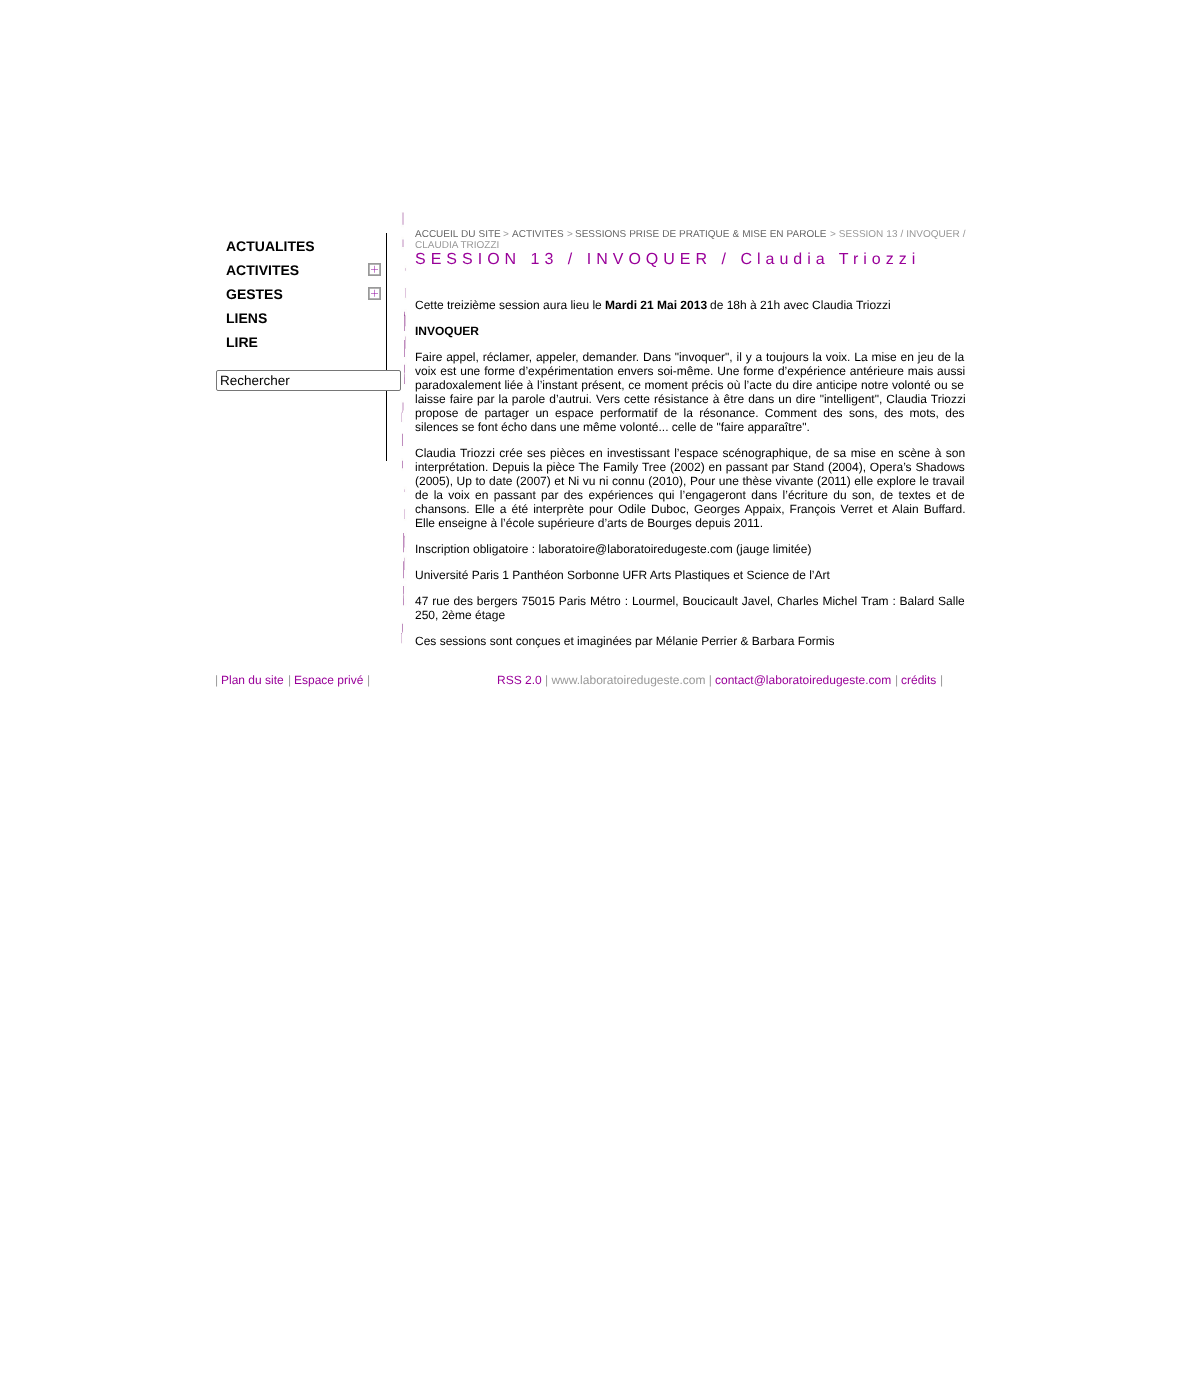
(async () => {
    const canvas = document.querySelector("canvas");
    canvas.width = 1180;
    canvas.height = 1394;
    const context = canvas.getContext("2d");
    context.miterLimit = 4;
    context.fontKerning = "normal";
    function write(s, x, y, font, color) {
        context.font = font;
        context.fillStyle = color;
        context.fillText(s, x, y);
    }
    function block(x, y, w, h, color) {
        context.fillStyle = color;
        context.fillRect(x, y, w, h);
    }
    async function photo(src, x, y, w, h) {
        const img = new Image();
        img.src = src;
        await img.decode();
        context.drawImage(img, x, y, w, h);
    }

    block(0, 0, 1180, 1394, "rgb(255, 255, 255)");
    block(386, 233, 1, 228, "rgb(0, 0, 0)");
    write("ACTUALITES", 226, 251, "bold 14px Liberation Sans", "rgb(0, 0, 0)");
    write("ACTIVITES", 226, 275, "bold 14px Liberation Sans", "rgb(0, 0, 0)");
    await photo("media/1.png", 368, 263, 13, 13);
    write("GESTES", 226, 299, "bold 14px Liberation Sans", "rgb(0, 0, 0)");
    await photo("media/1.png", 368, 287, 13, 13);
    write("LIENS", 226, 323, "bold 14px Liberation Sans", "rgb(0, 0, 0)");
    write("LIRE", 226, 347, "bold 14px Liberation Sans", "rgb(0, 0, 0)");
    context.fillStyle = "rgb(255, 255, 255)";
    context.beginPath();
    context.roundRect(216.5, 370.5, 184, 20, 1.5);
    context.fill();
    context.strokeStyle = "rgb(118, 118, 118)";
    context.stroke();
    write("Rechercher", 220, 385, "13.5px Liberation Sans", "rgb(0, 0, 0)");
    await photo("media/2.png", 401, 212, 6, 432);
    context.wordSpacing = "0.25px";
    write("ACCUEIL DU SITE", 415, 237, "10px Liberation Sans", "rgb(102, 102, 102)");
    context.wordSpacing = "0px";
    write(">", 503, 237, "10px Liberation Sans", "rgb(153, 153, 153)");
    write("ACTIVITES", 512, 237, "10px Liberation Sans", "rgb(102, 102, 102)");
    write(">", 567, 237, "10px Liberation Sans", "rgb(153, 153, 153)");
    context.wordSpacing = "0.25px";
    write("SESSIONS PRISE DE PRATIQUE & MISE EN PAROLE", 575, 237, "10px Liberation Sans", "rgb(102, 102, 102)");
    write("> SESSION 13 / INVOQUER /", 830, 237, "10px Liberation Sans", "rgb(153, 153, 153)");
    context.wordSpacing = "0px";
    write("CLAUDIA TRIOZZI", 415, 248, "10px Liberation Sans", "rgb(153, 153, 153)");
    context.letterSpacing = "5px";
    write("SESSION 13 / INVOQUER / Claudia Triozzi", 415, 264, "16px Liberation Sans", "rgb(153, 0, 153)");
    context.letterSpacing = "0px";
    write("Cette treizième session aura lieu le", 415, 309, "12px Liberation Sans", "rgb(0, 0, 0)");
    write("Mardi 21 Mai 2013", 605, 309, "bold 12px Liberation Sans", "rgb(0, 0, 0)");
    write("de 18h à 21h avec Claudia Triozzi", 710, 309, "12px Liberation Sans", "rgb(0, 0, 0)");
    write("INVOQUER", 415, 335, "bold 12px Liberation Sans", "rgb(0, 0, 0)");
    context.wordSpacing = "0.5px";
    write("Faire appel, réclamer, appeler, demander. Dans \"invoquer\", il y a toujours la voix. La mise en jeu de la", 415, 361, "12px Liberation Sans", "rgb(0, 0, 0)");
    context.wordSpacing = "0.6px";
    write("voix est une forme d’expérimentation envers soi-même. Une forme d’expérience antérieure mais aussi", 415, 375, "12px Liberation Sans", "rgb(0, 0, 0)");
    context.wordSpacing = "0px";
    write("paradoxalement liée à", 415, 389, "12px Liberation Sans", "rgb(0, 0, 0)");
    context.wordSpacing = "0.25px";
    write("l’instant présent, ce moment précis où l’acte du dire anticipe notre volonté ou se", 537, 389, "12px Liberation Sans", "rgb(0, 0, 0)");
    context.wordSpacing = "0.7px";
    write("laisse faire par la parole d’autrui. Vers cette résistance à être dans un dire \"intelligent\", Claudia Triozzi", 415, 403, "12px Liberation Sans", "rgb(0, 0, 0)");
    context.wordSpacing = "3px";
    write("propose de partager un espace performatif de la résonance. Comment des sons, des mots, des", 415, 417, "12px Liberation Sans", "rgb(0, 0, 0)");
    context.wordSpacing = "0px";
    write("silences se font écho dans une même volonté... celle de \"faire apparaître\".", 415, 431, "12px Liberation Sans", "rgb(0, 0, 0)");
    context.wordSpacing = "1.1px";
    write("Claudia Triozzi crée ses pièces en investissant l’espace scénographique, de sa mise en scène à son", 415, 457, "12px Liberation Sans", "rgb(0, 0, 0)");
    context.wordSpacing = "0.5px";
    write("interprétation. Depuis", 415, 471, "12px Liberation Sans", "rgb(0, 0, 0)");
    write("la pièce The Family Tree", 533, 471, "12px Liberation Sans", "rgb(0, 0, 0)");
    write("(2002) en passant par Stand (2004), Opera’s Shadows", 670, 471, "12px Liberation Sans", "rgb(0, 0, 0)");
    context.wordSpacing = "0.25px";
    write("(2005), Up to date (2007) et Ni vu ni connu (2010), Pour une thèse vivante (2011) elle explore le travail", 415, 485, "12px Liberation Sans", "rgb(0, 0, 0)");
    context.wordSpacing = "2px";
    write("de la voix en passant par des expériences qui l’engageront dans l’écriture du son, de textes et de", 415, 499, "12px Liberation Sans", "rgb(0, 0, 0)");
    context.wordSpacing = "1.7px";
    write("chansons. Elle a été interprète pour Odile Duboc, Georges Appaix, François Verret et Alain Buffard.", 415, 513, "12px Liberation Sans", "rgb(0, 0, 0)");
    context.wordSpacing = "0px";
    write("Elle enseigne à l’école supérieure d’arts de Bourges depuis 2011.", 415, 527, "12px Liberation Sans", "rgb(0, 0, 0)");
    write("Inscription obligatoire : laboratoire@laboratoiredugeste.com (jauge limitée)", 415, 553, "12px Liberation Sans", "rgb(0, 0, 0)");
    write("Université Paris 1 Panthéon Sorbonne UFR Arts Plastiques et Science de l’Art", 415, 579, "12px Liberation Sans", "rgb(0, 0, 0)");
    context.wordSpacing = "0.6px";
    write("47 rue des bergers 75015 Paris Métro : Lourmel, Boucicault Javel, Charles Michel", 415, 605, "12px Liberation Sans", "rgb(0, 0, 0)");
    context.wordSpacing = "0.5px";
    write("Tram : Balard Salle", 861, 605, "12px Liberation Sans", "rgb(0, 0, 0)");
    context.wordSpacing = "0px";
    write("250, 2ème étage", 415, 619, "12px Liberation Sans", "rgb(0, 0, 0)");
    write("Ces sessions sont conçues et imaginées par Mélanie Perrier & Barbara Formis", 415, 645, "12px Liberation Sans", "rgb(0, 0, 0)");
    write("|", 215, 684, "12px Liberation Sans", "rgb(153, 153, 153)");
    write("Plan du site", 221, 684, "12px Liberation Sans", "rgb(153, 0, 153)");
    write("|", 288, 684, "12px Liberation Sans", "rgb(153, 153, 153)");
    write("Espace privé", 294, 684, "12px Liberation Sans", "rgb(153, 0, 153)");
    write("|", 367, 684, "12px Liberation Sans", "rgb(153, 153, 153)");
    write("RSS 2.0", 497, 684, "12px Liberation Sans", "rgb(153, 0, 153)");
    write("| www.laboratoiredugeste.com |", 545, 684, "12px Liberation Sans", "rgb(153, 153, 153)");
    write("contact@laboratoiredugeste.com", 715, 684, "12px Liberation Sans", "rgb(153, 0, 153)");
    write("|", 895, 684, "12px Liberation Sans", "rgb(153, 153, 153)");
    write("crédits", 901, 684, "12px Liberation Sans", "rgb(153, 0, 153)");
    write("|", 940, 684, "12px Liberation Sans", "rgb(153, 153, 153)");
})();
